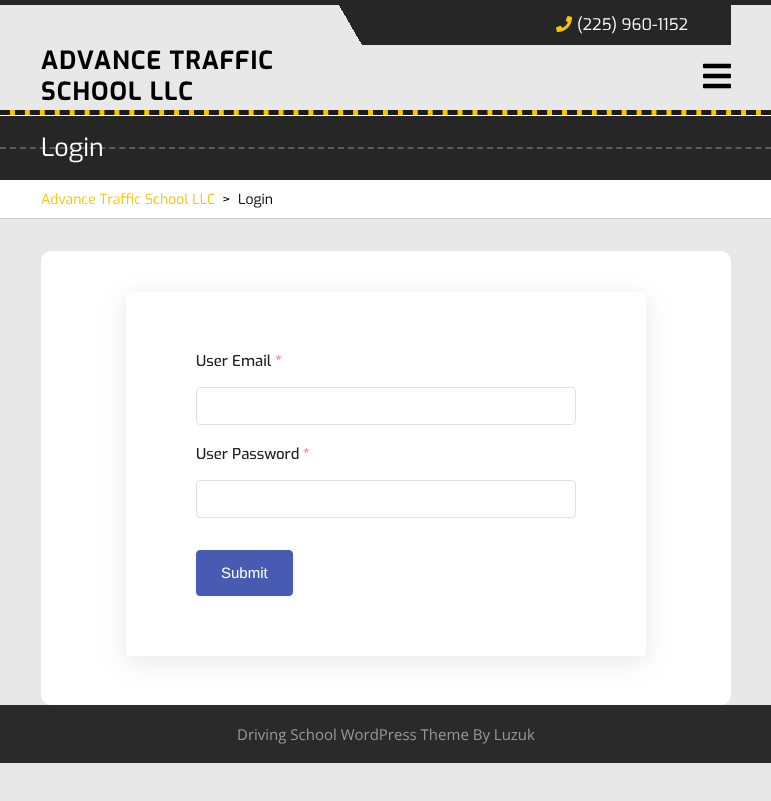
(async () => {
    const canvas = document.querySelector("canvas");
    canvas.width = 771;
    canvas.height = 801;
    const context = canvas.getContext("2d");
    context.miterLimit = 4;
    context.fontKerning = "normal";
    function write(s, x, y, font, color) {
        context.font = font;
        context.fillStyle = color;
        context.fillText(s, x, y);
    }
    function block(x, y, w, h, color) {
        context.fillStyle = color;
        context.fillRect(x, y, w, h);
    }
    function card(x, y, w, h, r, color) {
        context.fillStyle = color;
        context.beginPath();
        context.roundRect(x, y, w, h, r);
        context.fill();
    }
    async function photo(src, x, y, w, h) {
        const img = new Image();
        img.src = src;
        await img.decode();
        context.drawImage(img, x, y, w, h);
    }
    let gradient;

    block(0, 0, 771, 801, "rgb(232, 232, 232)");
    block(0, 0, 771, 5, "rgb(38, 38, 38)");
    gradient = context.createLinearGradient(119, 179, 653, -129);
    gradient.addColorStop(0.45, "rgb(232, 232, 232)");
    gradient.addColorStop(0.45, "rgb(38, 38, 38)");
    context.fillStyle = gradient;
    context.fillRect(339, 5, 392, 40);
    await photo("media/1.png", 556, 16, 16, 16);
    write("(225) 960-1152", 577, 30, "16px Exo", "rgb(255, 255, 255)");
    context.letterSpacing = "1px";
    write("ADVANCE TRAFFIC", 41, 69, "bold 25px Exo", "rgb(0, 0, 0)");
    write("SCHOOL LLC", 41, 100, "bold 25px Exo", "rgb(0, 0, 0)");
    await photo("media/2.png", 703, 63, 28, 26);
    block(10, 110, 761, 5, "rgb(246, 197, 4)");
    context.beginPath();
    context.moveTo(0, 112.5);
    context.lineTo(771, 112.5);
    context.strokeStyle = "rgb(28, 28, 28)";
    context.lineWidth = 5;
    context.setLineDash([10, 4.92]);
    context.stroke();
    block(0, 116, 771, 64, "rgb(38, 38, 38)");
    block(0, 115, 771, 1, "rgb(255, 255, 255)");
    context.beginPath();
    context.moveTo(0, 148);
    context.lineTo(771, 148);
    context.strokeStyle = "rgb(91, 91, 91)";
    context.lineWidth = 2;
    context.setLineDash([6, 3.94]);
    context.stroke();
    context.letterSpacing = "0px";
    write("Login", 41, 156, "25px Exo", "rgb(255, 255, 255)");
    block(0, 180, 771, 38, "rgb(255, 255, 255)");
    block(0, 218, 771, 1, "rgb(204, 204, 204)");
    write("Advance Traffic School LLC", 41, 204, "14px Exo", "rgb(246, 197, 4)");
    write(">", 222, 204, "14px Exo", "rgb(0, 0, 0)");
    write("Login", 238, 204, "14px Exo", "rgb(0, 0, 0)");
    card(41, 251, 690, 454, 10, "rgb(255, 255, 255)");
    block(0, 705, 771, 1, "rgb(46, 46, 46)");
    block(0, 706, 771, 57, "rgb(42, 42, 42)");
    context.fillStyle = "rgba(17, 17, 26, 0.05)";
    context.filter = "blur(16px)";
    context.beginPath();
    context.roundRect(126, 300, 520, 364, 4);
    context.fill();
    context.filter = "none";
    context.filter = "blur(8px)";
    context.beginPath();
    context.roundRect(126, 296, 520, 364, 4);
    context.fill();
    context.filter = "none";
    card(126, 292, 520, 364, 4, "rgb(255, 255, 255)");
    write("User Email", 196, 366, "500 15px Exo", "rgb(34, 34, 34)");
    write("*", 275, 366, "500 15px Exo", "rgb(255, 79, 85)");
    context.beginPath();
    context.roundRect(196.5, 387.5, 379, 37, 3.5);
    context.strokeStyle = "rgb(225, 225, 225)";
    context.lineWidth = 1;
    context.setLineDash([]);
    context.stroke();
    write("User Password", 196, 459, "500 15px Exo", "rgb(34, 34, 34)");
    write("*", 303, 459, "500 15px Exo", "rgb(255, 79, 85)");
    context.beginPath();
    context.roundRect(196.5, 480.5, 379, 37, 3.5);
    context.stroke();
    context.fillStyle = "rgba(182, 187, 207, 0.15)";
    context.filter = "blur(1.5px)";
    context.beginPath();
    context.roundRect(196, 551, 97, 46, 4);
    context.fill();
    context.filter = "none";
    context.fillStyle = "rgb(71, 91, 178)";
    context.beginPath();
    context.roundRect(196.5, 550.5, 96, 45, 3.5);
    context.fill();
    context.strokeStyle = "rgb(71, 91, 178)";
    context.stroke();
    write("Submit", 221, 578, "15px Liberation Sans", "rgb(255, 255, 255)");
    write("Driving School WordPress Theme By Luzuk", 237, 740, "15px Open Sans", "rgb(152, 152, 152)");
})();
